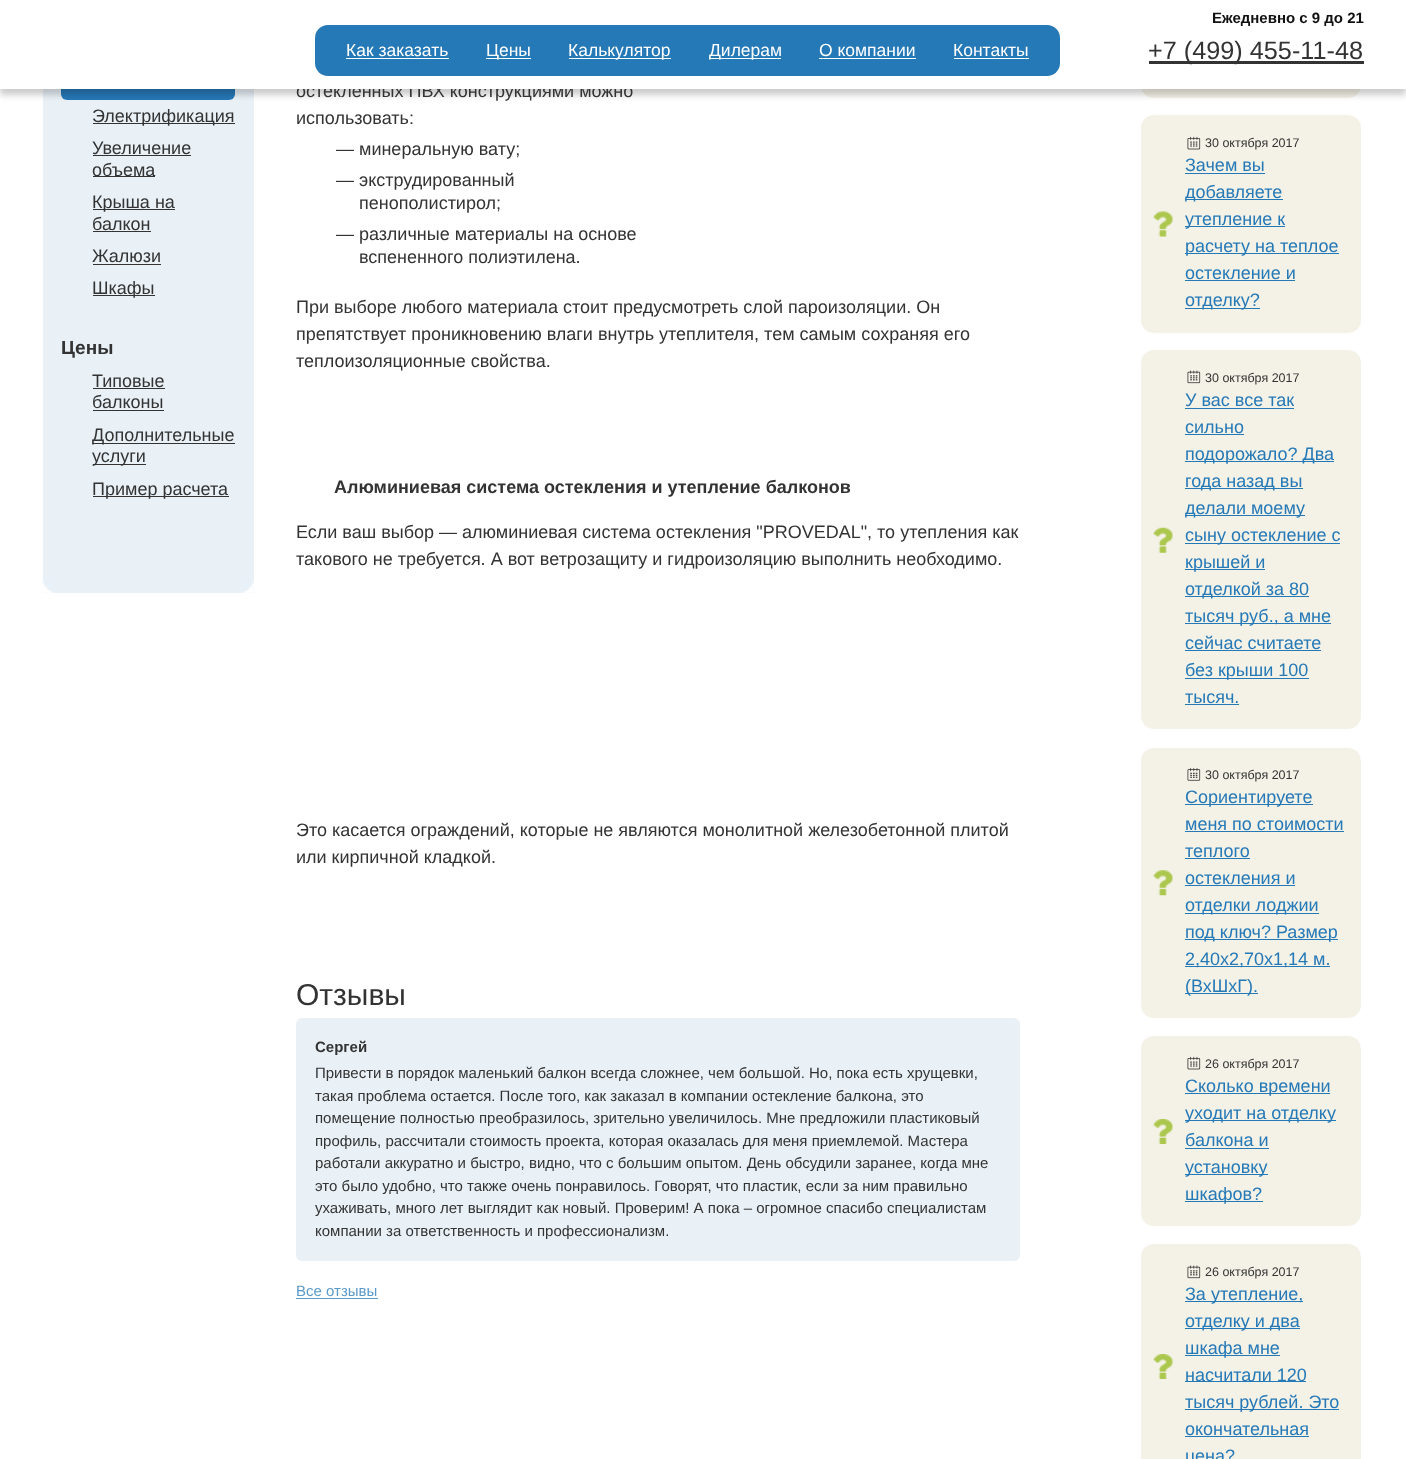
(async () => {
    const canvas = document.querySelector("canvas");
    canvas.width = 1406;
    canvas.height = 1459;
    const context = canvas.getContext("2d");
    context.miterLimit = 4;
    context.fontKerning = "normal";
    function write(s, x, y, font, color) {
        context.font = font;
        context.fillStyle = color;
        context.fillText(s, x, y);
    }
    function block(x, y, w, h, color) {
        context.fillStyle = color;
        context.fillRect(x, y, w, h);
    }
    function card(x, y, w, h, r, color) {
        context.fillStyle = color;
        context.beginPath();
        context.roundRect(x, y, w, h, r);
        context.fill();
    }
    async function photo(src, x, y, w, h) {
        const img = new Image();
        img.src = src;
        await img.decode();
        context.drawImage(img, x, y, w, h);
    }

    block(0, 0, 1406, 1459, "rgb(255, 255, 255)");
    block(43, 89, 211, 504, "rgb(233, 241, 247)");
    card(61, 68, 174, 32, 6, "rgb(38, 121, 183)");
    card(1141, -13, 220, 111, 13, "rgb(244, 242, 231)");
    context.fillStyle = "rgba(0, 0, 0, 0.2)";
    context.filter = "blur(3px)";
    context.beginPath();
    context.rect(0, 6, 1406, 89);
    context.fill();
    context.filter = "none";
    write("остекленных ПВХ конструкциями можно", 296, 97, "18px Liberation Sans", "rgb(51, 51, 51)");
    block(0, 0, 1406, 89, "rgb(255, 255, 255)");
    card(315, 25, 745, 51, 13, "rgb(38, 121, 183)");
    write("Как заказать", 346, 56, "17.5px Liberation Sans", "rgb(255, 255, 255)");
    block(346, 58, 103, 1, "rgb(255, 255, 255)");
    block(486, 58, 45, 1, "rgb(255, 255, 255)");
    write("Цены", 486, 56, "17.5px Liberation Sans", "rgb(255, 255, 255)");
    block(569, 58, 102, 1, "rgb(255, 255, 255)");
    write("Калькулятор", 568, 56, "17.5px Liberation Sans", "rgb(255, 255, 255)");
    block(709, 58, 72, 1, "rgb(255, 255, 255)");
    write("Дилерам", 709, 56, "17.5px Liberation Sans", "rgb(255, 255, 255)");
    write("О компании", 819, 56, "17.5px Liberation Sans", "rgb(255, 255, 255)");
    block(819, 58, 97, 1, "rgb(255, 255, 255)");
    write("Контакты", 953, 56, "17.5px Liberation Sans", "rgb(255, 255, 255)");
    block(954, 58, 75, 1, "rgb(255, 255, 255)");
    write("Ежедневно c 9 до 21", 1212, 23, "bold 15px Liberation Sans", "rgb(17, 17, 17)");
    block(1149, 61, 215, 3, "rgb(51, 51, 51)");
    write("+7 (499) 455-11-48", 1148, 59, "25.25px Liberation Sans", "rgb(51, 51, 51)");
    block(93, 123, 142, 1, "rgb(51, 51, 51)");
    write("Электрификация", 92, 122, "18px Liberation Sans", "rgb(51, 51, 51)");
    write("Увеличение", 92, 154, "18px Liberation Sans", "rgb(51, 51, 51)");
    block(93, 155, 98, 1, "rgb(51, 51, 51)");
    block(93, 176, 62, 1, "rgb(51, 51, 51)");
    write("объема", 92, 176, "18px Liberation Sans", "rgb(51, 51, 51)");
    block(93, 209, 82, 1, "rgb(51, 51, 51)");
    write("Крыша на", 92, 208, "18px Liberation Sans", "rgb(51, 51, 51)");
    write("балкон", 92, 230, "18px Liberation Sans", "rgb(51, 51, 51)");
    block(93, 231, 58, 1, "rgb(51, 51, 51)");
    write("Жалюзи", 92, 262, "18px Liberation Sans", "rgb(51, 51, 51)");
    block(93, 264, 68, 1, "rgb(51, 51, 51)");
    block(93, 295, 62, 1, "rgb(51, 51, 51)");
    write("Шкафы", 92, 294, "18px Liberation Sans", "rgb(51, 51, 51)");
    write("Цены", 61, 354, "bold 19px Liberation Sans", "rgb(51, 51, 51)");
    write("Типовые", 92, 387, "18px Liberation Sans", "rgb(51, 51, 51)");
    block(93, 388, 72, 1, "rgb(51, 51, 51)");
    write("балконы", 92, 408, "18px Liberation Sans", "rgb(51, 51, 51)");
    block(93, 410, 71, 1, "rgb(51, 51, 51)");
    block(93, 443, 142, 1, "rgb(51, 51, 51)");
    write("Дополнительные", 92, 441, "18px Liberation Sans", "rgb(51, 51, 51)");
    block(93, 464, 53, 1, "rgb(51, 51, 51)");
    write("услуги", 92, 462, "18px Liberation Sans", "rgb(51, 51, 51)");
    block(93, 496, 136, 1, "rgb(51, 51, 51)");
    write("Пример расчета", 92, 495, "18px Liberation Sans", "rgb(51, 51, 51)");
    await photo("media/1.png", 42, 580, 12, 13);
    await photo("media/2.png", 242, 581, 12, 12);
    write("использовать:", 296, 124, "18px Liberation Sans", "rgb(51, 51, 51)");
    write("— минеральную вату;", 336, 155, "18px Liberation Sans", "rgb(51, 51, 51)");
    write("— экструдированный", 336, 186, "18px Liberation Sans", "rgb(51, 51, 51)");
    write("пенополистирол;", 359, 209, "18px Liberation Sans", "rgb(51, 51, 51)");
    write("— различные материалы на основе", 336, 240, "18px Liberation Sans", "rgb(51, 51, 51)");
    write("вспененного полиэтилена.", 359, 263, "18px Liberation Sans", "rgb(51, 51, 51)");
    write("При выборе любого материала стоит предусмотреть слой пароизоляции. Он", 296, 313, "18px Liberation Sans", "rgb(51, 51, 51)");
    write("препятствует проникновению влаги внутрь утеплителя, тем самым сохраняя его", 296, 340, "18px Liberation Sans", "rgb(51, 51, 51)");
    write("теплоизоляционные свойства.", 296, 367, "18px Liberation Sans", "rgb(51, 51, 51)");
    write("Алюминиевая система остекления и утепление балконов", 334, 493, "bold 18px Liberation Sans", "rgb(51, 51, 51)");
    write("Если ваш выбор — алюминиевая система остекления \"PROVEDAL\", то утепления как", 296, 538, "18px Liberation Sans", "rgb(51, 51, 51)");
    write("такового не требуется. А вот ветрозащиту и гидроизоляцию выполнить необходимо.", 296, 565, "18px Liberation Sans", "rgb(51, 51, 51)");
    write("Это касается ограждений, которые не являются монолитной железобетонной плитой", 296, 836, "18px Liberation Sans", "rgb(51, 51, 51)");
    write("или кирпичной кладкой.", 296, 863, "18px Liberation Sans", "rgb(51, 51, 51)");
    write("Отзывы", 296, 1005, "30px Liberation Sans", "rgb(51, 51, 51)");
    card(296, 1018, 724, 243, 6, "rgb(233, 241, 247)");
    write("Сергей", 315, 1052, "bold 15px Liberation Sans", "rgb(51, 51, 51)");
    write("Привести в порядок маленький балкон всегда сложнее, чем большой. Но, пока есть хрущевки,", 315, 1078, "15px Liberation Sans", "rgb(51, 51, 51)");
    write("такая проблема остается. После того, как заказал в компании остекление балкона, это", 315, 1101, "15px Liberation Sans", "rgb(51, 51, 51)");
    write("помещение полностью преобразилось, зрительно увеличилось. Мне предложили пластиковый", 315, 1123, "15px Liberation Sans", "rgb(51, 51, 51)");
    write("профиль, рассчитали стоимость проекта, которая оказалась для меня приемлемой. Мастера", 315, 1146, "15px Liberation Sans", "rgb(51, 51, 51)");
    write("работали аккуратно и быстро, видно, что с большим опытом. День обсудили заранее, когда мне", 315, 1168, "15px Liberation Sans", "rgb(51, 51, 51)");
    write("это было удобно, что также очень понравилось. Говорят, что пластик, если за ним правильно", 315, 1191, "15px Liberation Sans", "rgb(51, 51, 51)");
    write("ухаживать, много лет выглядит как новый. Проверим! А пока – огромное спасибо специалистам", 315, 1213, "15px Liberation Sans", "rgb(51, 51, 51)");
    write("компании за ответственность и профессионализм.", 315, 1236, "15px Liberation Sans", "rgb(51, 51, 51)");
    write("Все отзывы", 296, 1296, "15px Liberation Sans", "rgb(92, 154, 201)");
    block(296, 1298, 82, 1, "rgb(92, 154, 201)");
    card(1141, 115, 220, 218, 13, "rgb(244, 242, 231)");
    await photo("media/3.png", 1153, 211, 20, 26);
    await photo("media/4.png", 1187, 136, 14, 14);
    write("30 октября 2017", 1205, 147, "12.5px Liberation Sans", "rgb(51, 51, 51)");
    write("Зачем вы", 1185, 171, "18px Liberation Sans", "rgb(38, 121, 183)");
    block(1185, 173, 80, 1, "rgb(38, 121, 183)");
    block(1185, 199, 98, 1, "rgb(38, 121, 183)");
    write("добавляете", 1185, 198, "18px Liberation Sans", "rgb(38, 121, 183)");
    block(1185, 226, 100, 1, "rgb(38, 121, 183)");
    write("утепление к", 1185, 225, "18px Liberation Sans", "rgb(38, 121, 183)");
    block(1185, 253, 154, 1, "rgb(38, 121, 183)");
    write("расчету на теплое", 1185, 252, "18px Liberation Sans", "rgb(38, 121, 183)");
    write("остекление и", 1185, 279, "18px Liberation Sans", "rgb(38, 121, 183)");
    block(1185, 280, 110, 1, "rgb(38, 121, 183)");
    block(1185, 308, 75, 1, "rgb(38, 121, 183)");
    write("отделку?", 1185, 306, "18px Liberation Sans", "rgb(38, 121, 183)");
    card(1141, 350, 220, 379, 13, "rgb(244, 242, 231)");
    await photo("media/5.png", 1153, 527, 20, 26);
    await photo("media/6.png", 1187, 370, 14, 14);
    write("30 октября 2017", 1205, 382, "12.5px Liberation Sans", "rgb(51, 51, 51)");
    write("У вас все так", 1185, 406, "18px Liberation Sans", "rgb(38, 121, 183)");
    block(1185, 408, 109, 1, "rgb(38, 121, 183)");
    write("сильно", 1185, 433, "18px Liberation Sans", "rgb(38, 121, 183)");
    block(1185, 434, 59, 1, "rgb(38, 121, 183)");
    block(1185, 461, 149, 1, "rgb(38, 121, 183)");
    write("подорожало? Два", 1185, 460, "18px Liberation Sans", "rgb(38, 121, 183)");
    block(1185, 488, 118, 1, "rgb(38, 121, 183)");
    write("года назад вы", 1185, 487, "18px Liberation Sans", "rgb(38, 121, 183)");
    block(1185, 515, 120, 1, "rgb(38, 121, 183)");
    write("делали моему", 1185, 514, "18px Liberation Sans", "rgb(38, 121, 183)");
    block(1185, 543, 155, 1, "rgb(38, 121, 183)");
    write("сыну остекление с", 1185, 541, "18px Liberation Sans", "rgb(38, 121, 183)");
    block(1185, 569, 80, 1, "rgb(38, 121, 183)");
    write("крышей и", 1185, 568, "18px Liberation Sans", "rgb(38, 121, 183)");
    block(1185, 596, 124, 1, "rgb(38, 121, 183)");
    write("отделкой за 80", 1185, 595, "18px Liberation Sans", "rgb(38, 121, 183)");
    block(1185, 623, 146, 1, "rgb(38, 121, 183)");
    write("тысяч руб., а мне", 1185, 622, "18px Liberation Sans", "rgb(38, 121, 183)");
    write("сейчас считаете", 1185, 649, "18px Liberation Sans", "rgb(38, 121, 183)");
    block(1185, 650, 136, 1, "rgb(38, 121, 183)");
    block(1185, 678, 124, 1, "rgb(38, 121, 183)");
    write("без крыши 100", 1185, 676, "18px Liberation Sans", "rgb(38, 121, 183)");
    write("тысяч.", 1185, 703, "18px Liberation Sans", "rgb(38, 121, 183)");
    block(1185, 704, 54, 1, "rgb(38, 121, 183)");
    card(1141, 748, 220, 270, 13, "rgb(244, 242, 231)");
    await photo("media/7.png", 1153, 870, 20, 26);
    await photo("media/8.png", 1187, 768, 14, 13);
    write("30 октября 2017", 1205, 779, "12.5px Liberation Sans", "rgb(51, 51, 51)");
    block(1185, 804, 128, 1, "rgb(38, 121, 183)");
    write("Сориентируете", 1185, 803, "18px Liberation Sans", "rgb(38, 121, 183)");
    write("меня по стоимости", 1185, 830, "18px Liberation Sans", "rgb(38, 121, 183)");
    block(1185, 831, 159, 1, "rgb(38, 121, 183)");
    write("теплого", 1185, 857, "18px Liberation Sans", "rgb(38, 121, 183)");
    block(1185, 858, 65, 1, "rgb(38, 121, 183)");
    write("остекления и", 1185, 884, "18px Liberation Sans", "rgb(38, 121, 183)");
    block(1185, 885, 110, 1, "rgb(38, 121, 183)");
    block(1185, 913, 134, 1, "rgb(38, 121, 183)");
    write("отделки лоджии", 1185, 911, "18px Liberation Sans", "rgb(38, 121, 183)");
    block(1185, 939, 153, 1, "rgb(38, 121, 183)");
    write("под ключ? Размер", 1185, 938, "18px Liberation Sans", "rgb(38, 121, 183)");
    block(1185, 966, 145, 1, "rgb(38, 121, 183)");
    write("2,40х2,70х1,14 м.", 1185, 965, "18px Liberation Sans", "rgb(38, 121, 183)");
    block(1185, 993, 73, 1, "rgb(38, 121, 183)");
    write("(ВхШхГ).", 1185, 992, "18px Liberation Sans", "rgb(38, 121, 183)");
    card(1141, 1036, 220, 190, 13, "rgb(244, 242, 231)");
    await photo("media/9.png", 1153, 1119, 20, 25);
    await photo("media/4.png", 1187, 1056, 14, 14);
    write("26 октября 2017", 1205, 1068, "12.5px Liberation Sans", "rgb(51, 51, 51)");
    block(1185, 1093, 145, 1, "rgb(38, 121, 183)");
    write("Сколько времени", 1185, 1092, "18px Liberation Sans", "rgb(38, 121, 183)");
    block(1185, 1120, 151, 1, "rgb(38, 121, 183)");
    write("уходит на отделку", 1185, 1119, "18px Liberation Sans", "rgb(38, 121, 183)");
    write("балкона и", 1185, 1146, "18px Liberation Sans", "rgb(38, 121, 183)");
    block(1185, 1148, 84, 1, "rgb(38, 121, 183)");
    block(1185, 1174, 83, 1, "rgb(38, 121, 183)");
    write("установку", 1185, 1173, "18px Liberation Sans", "rgb(38, 121, 183)");
    block(1185, 1201, 78, 1, "rgb(38, 121, 183)");
    write("шкафов?", 1185, 1200, "18px Liberation Sans", "rgb(38, 121, 183)");
    card(1141, 1244, 220, 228, 13, "rgb(244, 242, 231)");
    await photo("media/10.png", 1153, 1354, 20, 25);
    await photo("media/6.png", 1187, 1265, 14, 14);
    write("26 октября 2017", 1205, 1276, "12.5px Liberation Sans", "rgb(51, 51, 51)");
    block(1185, 1301, 118, 1, "rgb(38, 121, 183)");
    write("За утепление,", 1185, 1300, "18px Liberation Sans", "rgb(38, 121, 183)");
    block(1185, 1328, 115, 1, "rgb(38, 121, 183)");
    write("отделку и два", 1185, 1327, "18px Liberation Sans", "rgb(38, 121, 183)");
    block(1185, 1355, 95, 1, "rgb(38, 121, 183)");
    write("шкафа мне", 1185, 1354, "18px Liberation Sans", "rgb(38, 121, 183)");
    block(1185, 1381, 121, 1, "rgb(38, 121, 183)");
    write("насчитали 120", 1185, 1381, "18px Liberation Sans", "rgb(38, 121, 183)");
    block(1185, 1409, 154, 1, "rgb(38, 121, 183)");
    write("тысяч рублей. Это", 1185, 1408, "18px Liberation Sans", "rgb(38, 121, 183)");
    write("окончательная", 1185, 1435, "18px Liberation Sans", "rgb(38, 121, 183)");
    block(1185, 1436, 124, 1, "rgb(38, 121, 183)");
    write("цена?", 1185, 1462, "18px Liberation Sans", "rgb(38, 121, 183)");
})();
